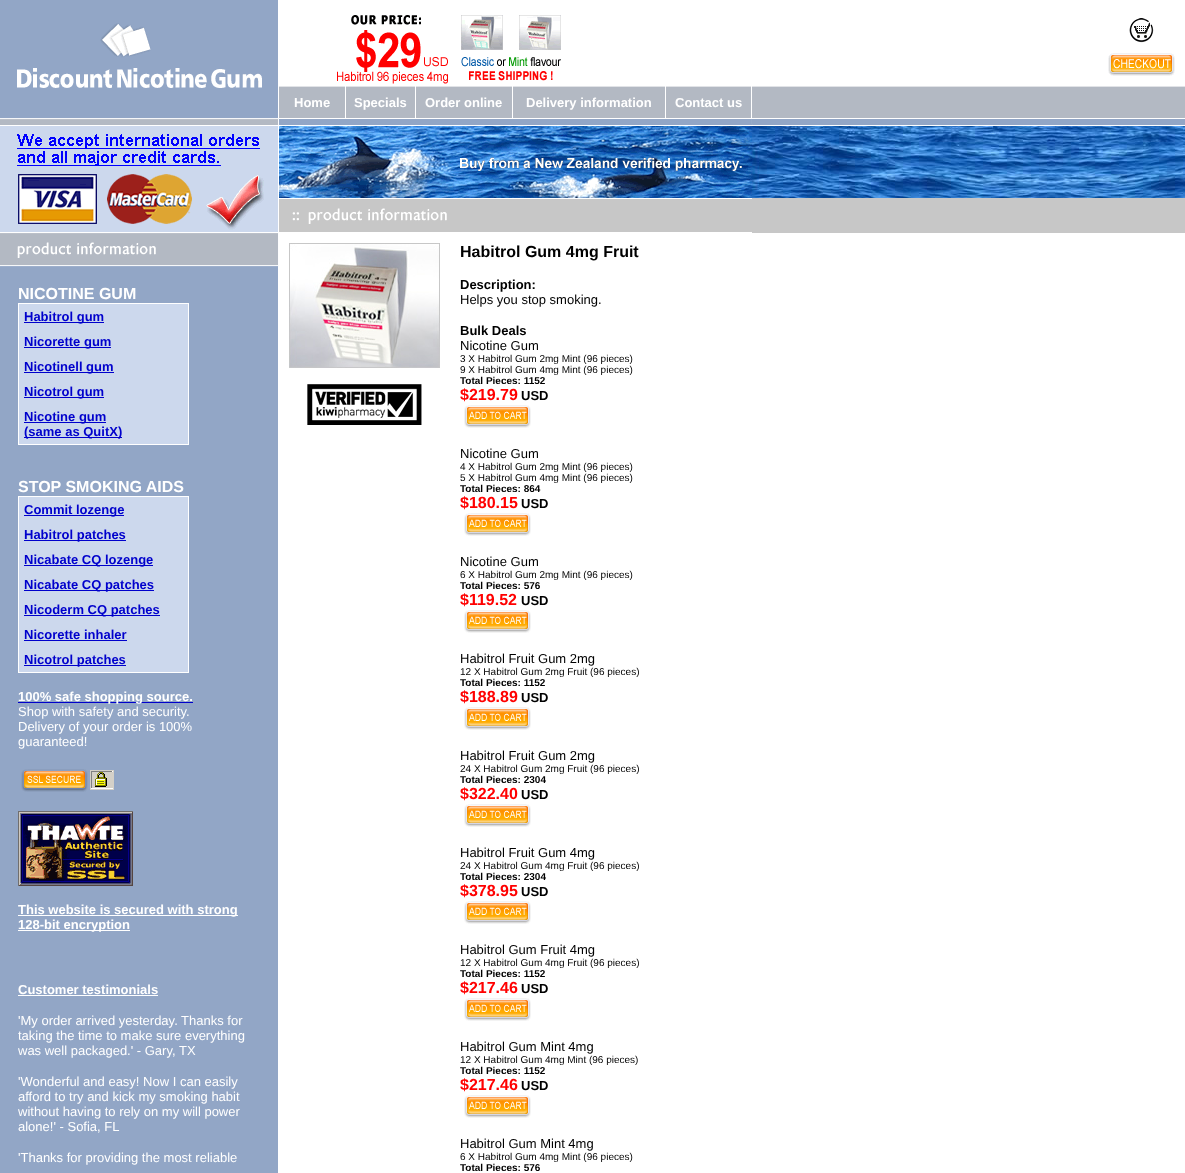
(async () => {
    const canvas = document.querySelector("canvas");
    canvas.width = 1185;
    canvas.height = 1173;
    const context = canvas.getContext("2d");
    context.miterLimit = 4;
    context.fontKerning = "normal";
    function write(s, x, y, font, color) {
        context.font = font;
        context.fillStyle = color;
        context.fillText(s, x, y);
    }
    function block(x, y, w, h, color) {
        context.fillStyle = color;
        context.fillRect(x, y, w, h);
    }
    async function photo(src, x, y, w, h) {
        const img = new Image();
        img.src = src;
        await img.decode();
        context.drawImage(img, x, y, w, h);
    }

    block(0, 0, 1185, 1173, "rgb(255, 255, 255)");
    await photo("media/1.png", 0, 0, 278, 118);
    await photo("media/2.png", 337, 15, 224, 69);
    await photo("media/3.png", 1108, 18, 67, 58);
    block(279, 87, 66, 31, "rgb(179, 185, 195)");
    block(279, 86, 66, 1, "rgb(225, 227, 231)");
    write("Home", 294, 107, "bold 13px Liberation Sans", "rgb(255, 255, 255)");
    block(346, 87, 69, 31, "rgb(179, 185, 195)");
    block(346, 86, 69, 1, "rgb(225, 227, 231)");
    write("Specials", 354, 107, "bold 13px Liberation Sans", "rgb(255, 255, 255)");
    block(416, 87, 96, 31, "rgb(179, 185, 195)");
    block(416, 86, 96, 1, "rgb(225, 227, 231)");
    write("Order online", 425, 107, "bold 13px Liberation Sans", "rgb(255, 255, 255)");
    block(513, 87, 152, 31, "rgb(179, 185, 195)");
    block(513, 86, 152, 1, "rgb(225, 227, 231)");
    write("Delivery information", 526, 107, "bold 13px Liberation Sans", "rgb(255, 255, 255)");
    block(666, 87, 85, 31, "rgb(179, 185, 195)");
    block(666, 86, 85, 1, "rgb(225, 227, 231)");
    write("Contact us", 675, 107, "bold 13px Liberation Sans", "rgb(255, 255, 255)");
    block(752, 87, 433, 31, "rgb(179, 185, 195)");
    block(752, 86, 433, 1, "rgb(225, 227, 231)");
    await photo("media/4.png", 0, 118, 279, 7);
    await photo("media/5.png", 279, 118, 906, 8);
    block(0, 126, 278, 8, "rgb(204, 216, 237)");
    await photo("media/6.png", 0, 134, 278, 99);
    await photo("media/7.png", 752, 126, 433, 72);
    await photo("media/8.png", 279, 126, 473, 72);
    block(752, 198, 433, 35, "rgb(199, 199, 199)");
    await photo("media/9.png", 279, 198, 473, 35);
    block(0, 267, 278, 906, "rgb(146, 166, 198)");
    await photo("media/10.png", 0, 233, 279, 34);
    write("NICOTINE GUM", 18, 299, "bold 16px Liberation Sans", "rgb(255, 255, 255)");
    block(18, 303, 171, 142, "rgb(255, 255, 255)");
    block(19, 304, 169, 140, "rgb(204, 216, 237)");
    block(24, 322, 80, 1, "rgb(0, 0, 204)");
    write("Habitrol gum", 24, 321, "bold 13px Liberation Sans", "rgb(0, 0, 204)");
    block(24, 347, 87, 1, "rgb(0, 0, 204)");
    write("Nicorette gum", 24, 346, "bold 13px Liberation Sans", "rgb(0, 0, 204)");
    block(24, 372, 90, 1, "rgb(0, 0, 204)");
    write("Nicotinell gum", 24, 371, "bold 13px Liberation Sans", "rgb(0, 0, 204)");
    block(24, 397, 80, 1, "rgb(0, 0, 204)");
    write("Nicotrol gum", 24, 396, "bold 13px Liberation Sans", "rgb(0, 0, 204)");
    block(24, 422, 82, 1, "rgb(0, 0, 204)");
    write("Nicotine gum", 24, 421, "bold 13px Liberation Sans", "rgb(0, 0, 204)");
    block(24, 437, 98, 1, "rgb(0, 0, 204)");
    write("(same as QuitX)", 24, 436, "bold 13px Liberation Sans", "rgb(0, 0, 204)");
    write("STOP SMOKING AIDS", 18, 492, "bold 16px Liberation Sans", "rgb(255, 255, 255)");
    block(18, 496, 171, 177, "rgb(255, 255, 255)");
    block(19, 497, 169, 175, "rgb(204, 216, 237)");
    block(24, 515, 100, 1, "rgb(0, 0, 204)");
    write("Commit lozenge", 24, 514, "bold 13px Liberation Sans", "rgb(0, 0, 204)");
    block(24, 540, 102, 1, "rgb(0, 0, 204)");
    write("Habitrol patches", 24, 539, "bold 13px Liberation Sans", "rgb(0, 0, 204)");
    block(24, 565, 129, 1, "rgb(0, 0, 204)");
    write("Nicabate CQ lozenge", 24, 564, "bold 13px Liberation Sans", "rgb(0, 0, 204)");
    block(24, 590, 130, 1, "rgb(0, 0, 204)");
    write("Nicabate CQ patches", 24, 589, "bold 13px Liberation Sans", "rgb(0, 0, 204)");
    block(24, 615, 136, 1, "rgb(0, 0, 204)");
    write("Nicoderm CQ patches", 24, 614, "bold 13px Liberation Sans", "rgb(0, 0, 204)");
    write("Nicorette inhaler", 24, 639, "bold 13px Liberation Sans", "rgb(0, 0, 204)");
    block(24, 640, 103, 1, "rgb(0, 0, 204)");
    block(24, 665, 102, 1, "rgb(0, 0, 204)");
    write("Nicotrol patches", 24, 664, "bold 13px Liberation Sans", "rgb(0, 0, 204)");
    block(18, 702, 175, 1, "rgb(0, 0, 204)");
    write("100% safe shopping source.", 18, 701, "bold 13px Liberation Sans", "rgb(255, 255, 255)");
    write("Shop with safety and security.", 18, 716, "13px Liberation Sans", "rgb(255, 255, 255)");
    write("Delivery of your order is 100%", 18, 731, "13px Liberation Sans", "rgb(255, 255, 255)");
    write("guaranteed!", 18, 746, "13px Liberation Sans", "rgb(255, 255, 255)");
    await photo("media/11.png", 21, 769, 93, 23);
    await photo("media/12.png", 18, 811, 115, 75);
    block(18, 915, 220, 1, "rgb(255, 255, 255)");
    write("This website is secured with strong", 18, 914, "bold 13px Liberation Sans", "rgb(255, 255, 255)");
    block(18, 930, 112, 1, "rgb(255, 255, 255)");
    write("128-bit encryption", 18, 929, "bold 13px Liberation Sans", "rgb(255, 255, 255)");
    write("Customer testimonials", 18, 994, "bold 13px Liberation Sans", "rgb(255, 255, 255)");
    block(18, 995, 140, 1, "rgb(255, 255, 255)");
    write("'My order arrived yesterday. Thanks for", 18, 1025, "13px Liberation Sans", "rgb(255, 255, 255)");
    write("taking the time to make sure everything", 18, 1040, "13px Liberation Sans", "rgb(255, 255, 255)");
    write("was well packaged.' - Gary, TX", 18, 1055, "13px Liberation Sans", "rgb(255, 255, 255)");
    write("'Wonderful and easy! Now I can easily", 18, 1086, "13px Liberation Sans", "rgb(255, 255, 255)");
    write("afford to try and kick my smoking habit", 18, 1101, "13px Liberation Sans", "rgb(255, 255, 255)");
    write("without having to rely on my will power", 18, 1116, "13px Liberation Sans", "rgb(255, 255, 255)");
    write("alone!' - Sofia, FL", 18, 1131, "13px Liberation Sans", "rgb(255, 255, 255)");
    write("'Thanks for providing the most reliable", 18, 1162, "13px Liberation Sans", "rgb(255, 255, 255)");
    await photo("media/13.png", 289, 243, 151, 125);
    await photo("media/14.png", 307, 384, 115, 41);
    write("Habitrol Gum 4mg Fruit", 460, 257, "bold 16px Liberation Sans", "rgb(0, 0, 0)");
    write("Description:", 460, 289, "bold 13px Liberation Sans", "rgb(0, 0, 0)");
    write("Helps you stop smoking.", 460, 304, "13px Liberation Sans", "rgb(0, 0, 0)");
    write("Bulk Deals", 460, 335, "bold 13px Liberation Sans", "rgb(0, 0, 0)");
    write("Nicotine Gum", 460, 350, "13px Liberation Sans", "rgb(0, 0, 0)");
    write("3 X Habitrol Gum 2mg Mint (96 pieces)", 460, 362, "10px Liberation Sans", "rgb(0, 0, 0)");
    write("9 X Habitrol Gum 4mg Mint (96 pieces)", 460, 373, "10px Liberation Sans", "rgb(0, 0, 0)");
    write("Total Pieces: 1152", 460, 384, "bold 10px Liberation Sans", "rgb(0, 0, 0)");
    write("$219.79", 460, 400, "bold 16px Liberation Sans", "rgb(255, 0, 0)");
    write("USD", 521, 400, "bold 13px Liberation Sans", "rgb(0, 0, 0)");
    await photo("media/15.png", 464, 405, 67, 23);
    write("Nicotine Gum", 460, 458, "13px Liberation Sans", "rgb(0, 0, 0)");
    write("4 X Habitrol Gum 2mg Mint (96 pieces)", 460, 470, "10px Liberation Sans", "rgb(0, 0, 0)");
    write("5 X Habitrol Gum 4mg Mint (96 pieces)", 460, 481, "10px Liberation Sans", "rgb(0, 0, 0)");
    write("Total Pieces: 864", 460, 492, "bold 10px Liberation Sans", "rgb(0, 0, 0)");
    write("$180.15", 460, 508, "bold 16px Liberation Sans", "rgb(255, 0, 0)");
    write("USD", 521, 508, "bold 13px Liberation Sans", "rgb(0, 0, 0)");
    await photo("media/15.png", 464, 513, 67, 23);
    write("Nicotine Gum", 460, 566, "13px Liberation Sans", "rgb(0, 0, 0)");
    write("6 X Habitrol Gum 2mg Mint (96 pieces)", 460, 578, "10px Liberation Sans", "rgb(0, 0, 0)");
    write("Total Pieces: 576", 460, 589, "bold 10px Liberation Sans", "rgb(0, 0, 0)");
    write("$119.52", 460, 605, "bold 16px Liberation Sans", "rgb(255, 0, 0)");
    write("USD", 521, 605, "bold 13px Liberation Sans", "rgb(0, 0, 0)");
    await photo("media/15.png", 464, 610, 67, 23);
    write("Habitrol Fruit Gum 2mg", 460, 663, "13px Liberation Sans", "rgb(0, 0, 0)");
    write("12 X Habitrol Gum 2mg Fruit (96 pieces)", 460, 675, "10px Liberation Sans", "rgb(0, 0, 0)");
    write("Total Pieces: 1152", 460, 686, "bold 10px Liberation Sans", "rgb(0, 0, 0)");
    write("$188.89", 460, 702, "bold 16px Liberation Sans", "rgb(255, 0, 0)");
    write("USD", 521, 702, "bold 13px Liberation Sans", "rgb(0, 0, 0)");
    await photo("media/15.png", 464, 707, 67, 23);
    write("Habitrol Fruit Gum 2mg", 460, 760, "13px Liberation Sans", "rgb(0, 0, 0)");
    write("24 X Habitrol Gum 2mg Fruit (96 pieces)", 460, 772, "10px Liberation Sans", "rgb(0, 0, 0)");
    write("Total Pieces: 2304", 460, 783, "bold 10px Liberation Sans", "rgb(0, 0, 0)");
    write("$322.40", 460, 799, "bold 16px Liberation Sans", "rgb(255, 0, 0)");
    write("USD", 521, 799, "bold 13px Liberation Sans", "rgb(0, 0, 0)");
    await photo("media/15.png", 464, 804, 67, 23);
    write("Habitrol Fruit Gum 4mg", 460, 857, "13px Liberation Sans", "rgb(0, 0, 0)");
    write("24 X Habitrol Gum 4mg Fruit (96 pieces)", 460, 869, "10px Liberation Sans", "rgb(0, 0, 0)");
    write("Total Pieces: 2304", 460, 880, "bold 10px Liberation Sans", "rgb(0, 0, 0)");
    write("$378.95", 460, 896, "bold 16px Liberation Sans", "rgb(255, 0, 0)");
    write("USD", 521, 896, "bold 13px Liberation Sans", "rgb(0, 0, 0)");
    await photo("media/15.png", 464, 901, 67, 23);
    write("Habitrol Gum Fruit 4mg", 460, 954, "13px Liberation Sans", "rgb(0, 0, 0)");
    write("12 X Habitrol Gum 4mg Fruit (96 pieces)", 460, 966, "10px Liberation Sans", "rgb(0, 0, 0)");
    write("Total Pieces: 1152", 460, 977, "bold 10px Liberation Sans", "rgb(0, 0, 0)");
    write("$217.46", 460, 993, "bold 16px Liberation Sans", "rgb(255, 0, 0)");
    write("USD", 521, 993, "bold 13px Liberation Sans", "rgb(0, 0, 0)");
    await photo("media/15.png", 464, 998, 67, 23);
    write("Habitrol Gum Mint 4mg", 460, 1051, "13px Liberation Sans", "rgb(0, 0, 0)");
    write("12 X Habitrol Gum 4mg Mint (96 pieces)", 460, 1063, "10px Liberation Sans", "rgb(0, 0, 0)");
    write("Total Pieces: 1152", 460, 1074, "bold 10px Liberation Sans", "rgb(0, 0, 0)");
    write("$217.46", 460, 1090, "bold 16px Liberation Sans", "rgb(255, 0, 0)");
    write("USD", 521, 1090, "bold 13px Liberation Sans", "rgb(0, 0, 0)");
    await photo("media/15.png", 464, 1095, 67, 23);
    write("Habitrol Gum Mint 4mg", 460, 1148, "13px Liberation Sans", "rgb(0, 0, 0)");
    write("6 X Habitrol Gum 4mg Mint (96 pieces)", 460, 1160, "10px Liberation Sans", "rgb(0, 0, 0)");
    write("Total Pieces: 576", 460, 1171, "bold 10px Liberation Sans", "rgb(0, 0, 0)");
})();
